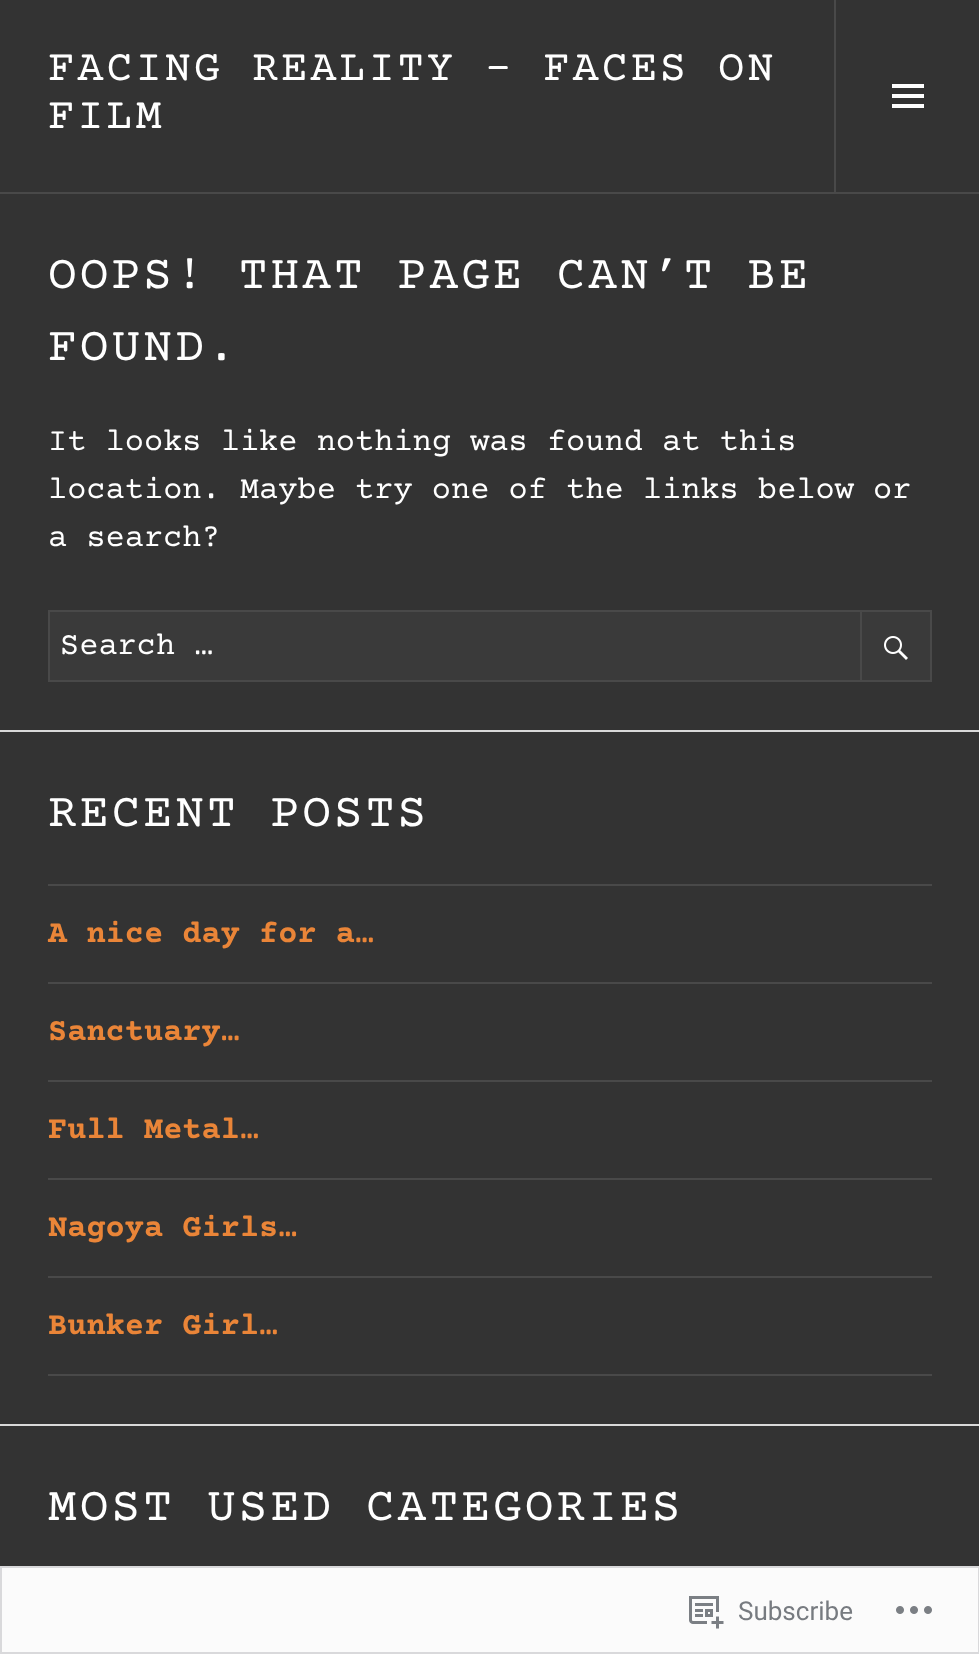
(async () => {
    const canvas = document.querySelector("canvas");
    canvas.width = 979;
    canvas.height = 1654;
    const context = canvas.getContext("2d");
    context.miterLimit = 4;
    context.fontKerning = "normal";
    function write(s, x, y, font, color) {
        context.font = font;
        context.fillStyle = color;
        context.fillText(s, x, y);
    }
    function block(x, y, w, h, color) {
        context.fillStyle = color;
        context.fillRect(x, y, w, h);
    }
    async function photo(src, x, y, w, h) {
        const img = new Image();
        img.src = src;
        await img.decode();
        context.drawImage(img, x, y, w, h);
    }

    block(0, 0, 979, 1654, "rgb(51, 51, 51)");
    block(0, 192, 979, 2, "rgb(73, 73, 73)");
    context.letterSpacing = "2.75px";
    write("FACING REALITY – FACES ON", 48, 80, "44px Courier Prime", "rgb(255, 255, 255)");
    write("FILM", 48, 128, "44px Courier Prime", "rgb(255, 255, 255)");
    block(834, 0, 2, 192, "rgb(73, 73, 73)");
    await photo("media/1.png", 892, 84, 32, 24);
    context.letterSpacing = "3px";
    write("OOPS! THAT PAGE CAN’T BE", 48, 288, "48px Courier Prime", "rgb(255, 255, 255)");
    write("FOUND.", 48, 360, "48px Courier Prime", "rgb(255, 255, 255)");
    context.letterSpacing = "0px";
    write("It looks like nothing was found at this", 48, 450, "32px Courier Prime", "rgb(255, 255, 255)");
    write("location. Maybe try one of the links below or", 48, 498, "32px Courier Prime", "rgb(255, 255, 255)");
    write("a search?", 48, 546, "32px Courier Prime", "rgb(255, 255, 255)");
    block(50, 612, 810, 68, "rgb(58, 58, 58)");
    context.strokeStyle = "rgb(73, 73, 73)";
    context.lineWidth = 2;
    context.strokeRect(49, 611, 882, 70);
    write("Search …", 60, 654, "32px Courier Prime", "rgb(255, 255, 255)");
    context.fillStyle = "rgb(58, 58, 58)";
    context.beginPath();
    context.rect(861, 611, 70, 70);
    context.fill();
    context.stroke();
    await photo("media/2.png", 884, 636, 24, 24);
    block(0, 730, 979, 2, "rgb(217, 217, 217)");
    context.letterSpacing = "3px";
    write("RECENT POSTS", 48, 826, "48px Courier Prime", "rgb(255, 255, 255)");
    block(48, 1374, 884, 2, "rgb(73, 73, 73)");
    block(48, 884, 884, 2, "rgb(73, 73, 73)");
    context.letterSpacing = "0px";
    write("A nice day for a…", 48, 942, "bold 32px Courier Prime", "rgb(234, 133, 56)");
    block(48, 982, 884, 2, "rgb(73, 73, 73)");
    write("Sanctuary…", 48, 1040, "bold 32px Courier Prime", "rgb(234, 133, 56)");
    block(48, 1080, 884, 2, "rgb(73, 73, 73)");
    write("Full Metal…", 48, 1138, "bold 32px Courier Prime", "rgb(234, 133, 56)");
    block(48, 1178, 884, 2, "rgb(73, 73, 73)");
    write("Nagoya Girls…", 48, 1236, "bold 32px Courier Prime", "rgb(234, 133, 56)");
    block(48, 1276, 884, 2, "rgb(73, 73, 73)");
    write("Bunker Girl…", 48, 1334, "bold 32px Courier Prime", "rgb(234, 133, 56)");
    block(0, 1424, 979, 2, "rgb(217, 217, 217)");
    context.letterSpacing = "3px";
    write("MOST USED CATEGORIES", 48, 1520, "48px Courier Prime", "rgb(255, 255, 255)");
    context.fillStyle = "rgb(251, 251, 251)";
    context.beginPath();
    context.rect(1, 1567, 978, 86);
    context.fill();
    context.strokeStyle = "rgb(217, 217, 219)";
    context.stroke();
    await photo("media/3.png", 689, 1596, 35, 33);
    context.letterSpacing = "0px";
    write("Subscribe", 738, 1620, "26px Roboto", "rgb(119, 123, 128)");
    await photo("media/4.png", 896, 1606, 36, 8);
})();
